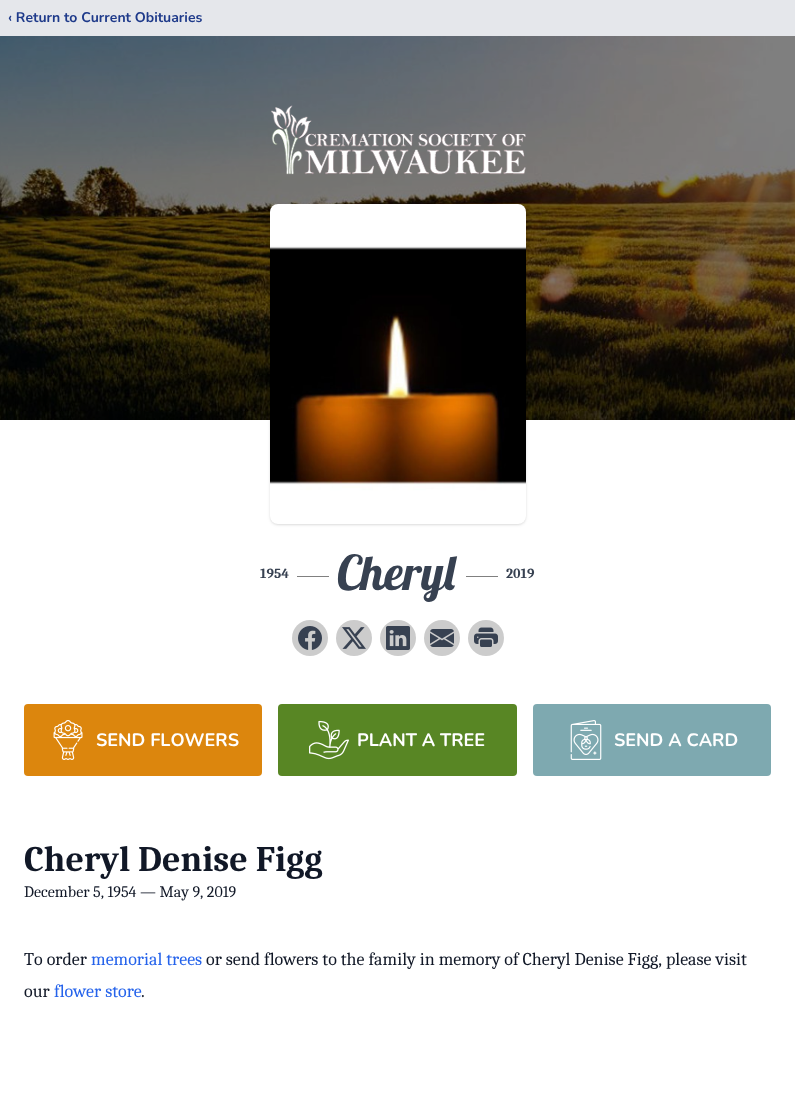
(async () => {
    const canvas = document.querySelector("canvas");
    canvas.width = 795;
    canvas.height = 1110;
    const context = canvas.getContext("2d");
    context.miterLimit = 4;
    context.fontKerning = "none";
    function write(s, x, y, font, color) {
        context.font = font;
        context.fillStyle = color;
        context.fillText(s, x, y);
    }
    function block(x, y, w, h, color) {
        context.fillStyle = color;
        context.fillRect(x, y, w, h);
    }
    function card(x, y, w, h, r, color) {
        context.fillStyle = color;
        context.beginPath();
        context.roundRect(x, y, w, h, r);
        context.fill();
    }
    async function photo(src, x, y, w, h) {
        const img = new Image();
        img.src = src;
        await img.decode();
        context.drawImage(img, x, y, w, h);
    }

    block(0, 0, 795, 1110, "rgb(255, 255, 255)");
    block(0, 0, 795, 36, "rgb(229, 231, 235)");
    write("‹ Return to Current Obituaries", 8, 22, "bold 14px Nunito", "rgb(30, 58, 138)");
    await photo("media/1.png", 0, 36, 795, 384);
    await photo("media/2.png", 271, 105, 255, 70);
    context.fillStyle = "rgba(0, 0, 0, 0.1)";
    context.filter = "blur(1px)";
    context.beginPath();
    context.roundRect(271, 206, 254, 318, 7);
    context.fill();
    context.filter = "none";
    context.filter = "blur(1.5px)";
    context.beginPath();
    context.roundRect(270, 205, 256, 320, 8);
    context.fill();
    context.filter = "none";
    await photo("media/3.png", 270, 204, 256, 320);
    write("1954", 260, 578, "bold 14px Caladea", "rgb(55, 65, 81)");
    block(297, 576, 32, 1, "rgb(128, 128, 128)");
    write("Cheryl", 337, 590, "48px Lobster", "rgb(55, 65, 81)");
    block(466, 576, 32, 1, "rgb(128, 128, 128)");
    write("2019", 506, 578, "bold 14px Caladea", "rgb(55, 65, 81)");
    context.fillStyle = "rgb(204, 204, 204)";
    context.beginPath();
    context.arc(310, 638, 18, 0, Math.PI * 2);
    context.fill();
    await photo("media/4.png", 298, 626, 24, 24);
    context.beginPath();
    context.arc(354, 638, 18, 0, Math.PI * 2);
    context.fill();
    await photo("media/5.png", 342, 627, 24, 22);
    context.beginPath();
    context.arc(398, 638, 18, 0, Math.PI * 2);
    context.fill();
    await photo("media/6.png", 386, 626, 24, 24);
    context.beginPath();
    context.arc(442, 638, 18, 0, Math.PI * 2);
    context.fill();
    await photo("media/7.png", 430, 629, 24, 18);
    context.beginPath();
    context.arc(486, 638, 18, 0, Math.PI * 2);
    context.fill();
    await photo("media/8.png", 474, 627, 24, 20);
    card(24, 704, 238, 72, 4, "rgb(220, 134, 13)");
    await photo("media/9.png", 53, 720, 30, 40);
    write("SEND FLOWERS", 96, 746, "bold 18px Nunito", "rgb(255, 255, 255)");
    card(278, 704, 239, 72, 4, "rgb(88, 134, 36)");
    await photo("media/10.png", 309, 720, 40, 40);
    write("PLANT A TREE", 357, 746, "bold 18px Nunito", "rgb(255, 255, 255)");
    card(533, 704, 238, 72, 4, "rgb(126, 169, 176)");
    await photo("media/11.png", 570, 720, 32, 40);
    write("SEND A CARD", 614, 746, "bold 18px Nunito", "rgb(255, 255, 255)");
    write("Cheryl Denise Figg", 24, 871, "bold 36px Caladea", "rgb(17, 24, 39)");
    write("December 5, 1954 — May 9, 2019", 24, 897, "16px Caladea", "rgb(17, 24, 39)");
    write("To order", 24, 965, "18px Caladea", "rgb(17, 24, 39)");
    write("memorial trees", 91, 965, "18px Caladea", "rgb(37, 99, 235)");
    write("or send flowers to the family in memory of Cheryl Denise Figg, please visit", 206, 965, "18px Caladea", "rgb(17, 24, 39)");
    write("our", 24, 997, "18px Caladea", "rgb(17, 24, 39)");
    write("flower store", 54, 997, "18px Caladea", "rgb(37, 99, 235)");
    write(".", 141, 997, "18px Caladea", "rgb(17, 24, 39)");
})();
